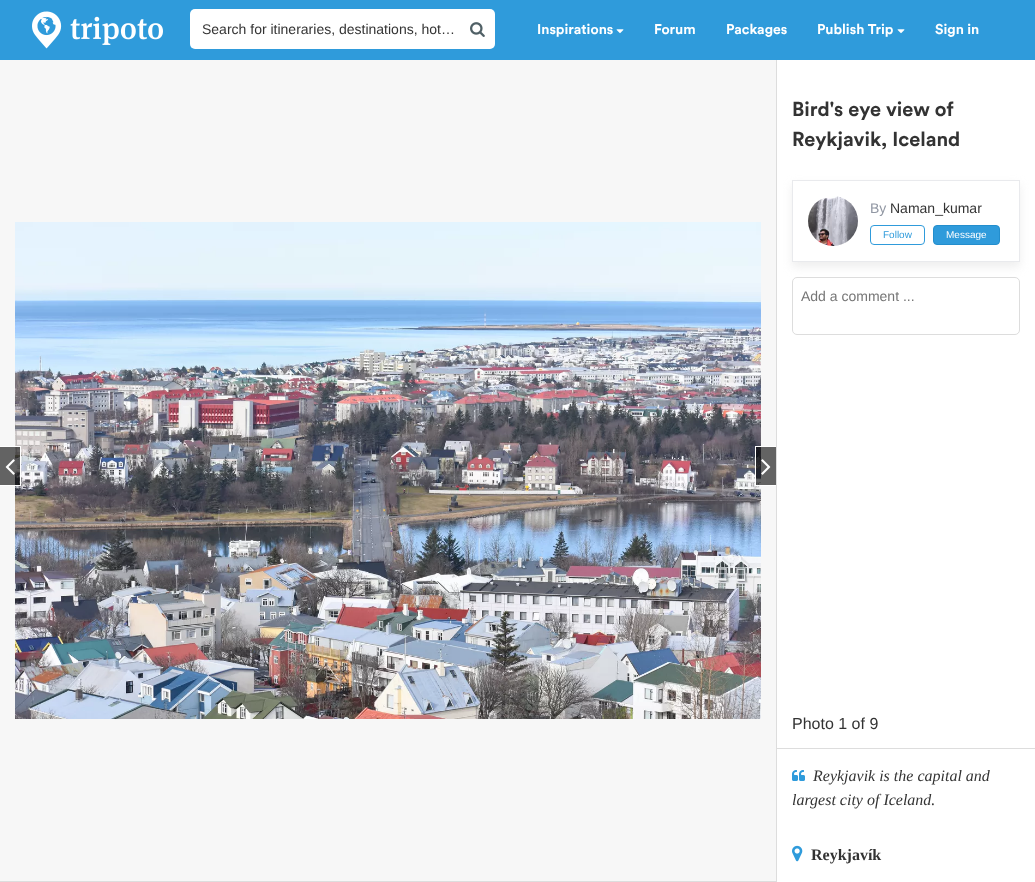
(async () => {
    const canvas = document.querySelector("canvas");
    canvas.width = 1035;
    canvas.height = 882;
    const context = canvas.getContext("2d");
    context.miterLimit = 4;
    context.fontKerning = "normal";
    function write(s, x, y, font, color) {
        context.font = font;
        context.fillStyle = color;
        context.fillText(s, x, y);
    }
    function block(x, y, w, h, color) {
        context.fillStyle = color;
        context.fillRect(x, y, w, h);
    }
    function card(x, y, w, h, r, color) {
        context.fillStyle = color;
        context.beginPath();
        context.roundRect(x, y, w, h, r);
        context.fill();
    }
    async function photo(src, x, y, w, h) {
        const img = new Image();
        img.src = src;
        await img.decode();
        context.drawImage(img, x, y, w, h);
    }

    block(0, 0, 1035, 882, "rgb(255, 255, 255)");
    block(0, 0, 1035, 60, "rgb(47, 155, 219)");
    await photo("media/1.png", 32, 11, 131, 38);
    card(190, 9, 305, 40, 5, "rgb(255, 255, 255)");
    write("Search for itineraries, destinations, hot…", 202, 34, "14px Liberation Sans", "rgb(51, 51, 51)");
    await photo("media/2.png", 470, 22, 15, 15);
    write("Inspirations", 537, 34, "bold 14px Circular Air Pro", "rgb(255, 255, 255)");
    await photo("media/3.png", 616, 29, 8, 5);
    write("Forum", 654, 34, "bold 14px Circular Air Pro", "rgb(255, 255, 255)");
    write("Packages", 726, 34, "bold 14px Circular Air Pro", "rgb(255, 255, 255)");
    write("Publish Trip", 817, 34, "bold 14px Circular Air Pro", "rgb(255, 255, 255)");
    await photo("media/3.png", 897, 29, 8, 5);
    write("Sign in", 935, 34, "bold 14px Circular Air Pro", "rgb(255, 255, 255)");
    block(0, 60, 776, 821, "rgb(247, 247, 247)");
    block(0, 881, 776, 1, "rgb(221, 221, 221)");
    await photo("media/5.png", 15, 222, 746, 497);
    block(0, 447, 20, 38, "rgba(0, 0, 0, 0.6)");
    block(0, 446, 21, 1, "rgb(255, 255, 255)");
    block(20, 446, 1, 40, "rgb(255, 255, 255)");
    block(0, 485, 21, 1, "rgb(255, 255, 255)");
    await photo("media/4.png", 5, 459, 10, 16);
    block(756, 447, 20, 38, "rgba(0, 0, 0, 0.6)");
    block(755, 446, 21, 1, "rgb(255, 255, 255)");
    block(755, 485, 21, 1, "rgb(255, 255, 255)");
    block(755, 446, 1, 40, "rgb(255, 255, 255)");
    await photo("media/6.png", 761, 459, 10, 16);
    block(776, 60, 1, 822, "rgb(221, 221, 221)");
    write("Bird's eye view of", 792, 116, "bold 20px Circular Air Pro", "rgb(51, 51, 51)");
    write("Reykjavik, Iceland", 792, 146, "bold 20px Circular Air Pro", "rgb(51, 51, 51)");
    context.save();
    context.beginPath();
    context.moveTo(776, 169);
    context.lineTo(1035, 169);
    context.lineTo(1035, 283);
    context.lineTo(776, 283);
    context.closePath();
    context.moveTo(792, 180);
    context.lineTo(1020, 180);
    context.lineTo(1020, 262);
    context.lineTo(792, 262);
    context.closePath();
    context.clip("evenodd");
    context.fillStyle = "rgba(221, 221, 221, 0.5)";
    context.filter = "blur(5px)";
    context.beginPath();
    context.rect(792, 185, 228, 82);
    context.fill();
    context.filter = "none";
    context.restore();
    context.strokeStyle = "rgb(233, 234, 237)";
    context.strokeRect(792.5, 180.5, 227, 81);
    await photo("media/7.png", 808, 196, 50, 50);
    write("By", 870, 213, "14px Liberation Sans", "rgb(145, 151, 163)");
    write("Naman_kumar", 890, 213, "14px Liberation Sans", "rgb(51, 51, 51)");
    context.beginPath();
    context.roundRect(870.5, 225.5, 54, 19, 3.5);
    context.strokeStyle = "rgb(47, 155, 219)";
    context.stroke();
    write("Follow", 883, 238, "10px Liberation Sans", "rgb(47, 155, 219)");
    context.beginPath();
    context.roundRect(933.5, 225.5, 66, 19, 3.5);
    context.fill();
    context.strokeStyle = "rgb(35, 142, 205)";
    context.stroke();
    write("Message", 946, 238, "10px Liberation Sans", "rgb(255, 255, 255)");
    context.beginPath();
    context.roundRect(792.5, 277.5, 227, 57, 4.5);
    context.strokeStyle = "rgb(221, 221, 221)";
    context.stroke();
    write("Add a comment ...", 801, 301, "14px Liberation Sans", "rgb(117, 117, 117)");
    block(777, 748, 258, 1, "rgb(221, 221, 221)");
    write("Photo 1 of 9", 792, 729, "16px Liberation Sans", "rgb(51, 51, 51)");
    await photo("media/8.png", 792, 770, 13, 11);
    write("Reykjavik is the capital and", 813, 781, "italic 16px Liberation Serif", "rgb(51, 51, 51)");
    write("largest city of Iceland.", 792, 805, "italic 16px Liberation Serif", "rgb(51, 51, 51)");
    await photo("media/9.png", 792, 845, 11, 17);
    write("Reykjavík", 811, 860, "bold 16px Liberation Serif", "rgb(51, 51, 51)");
})();
